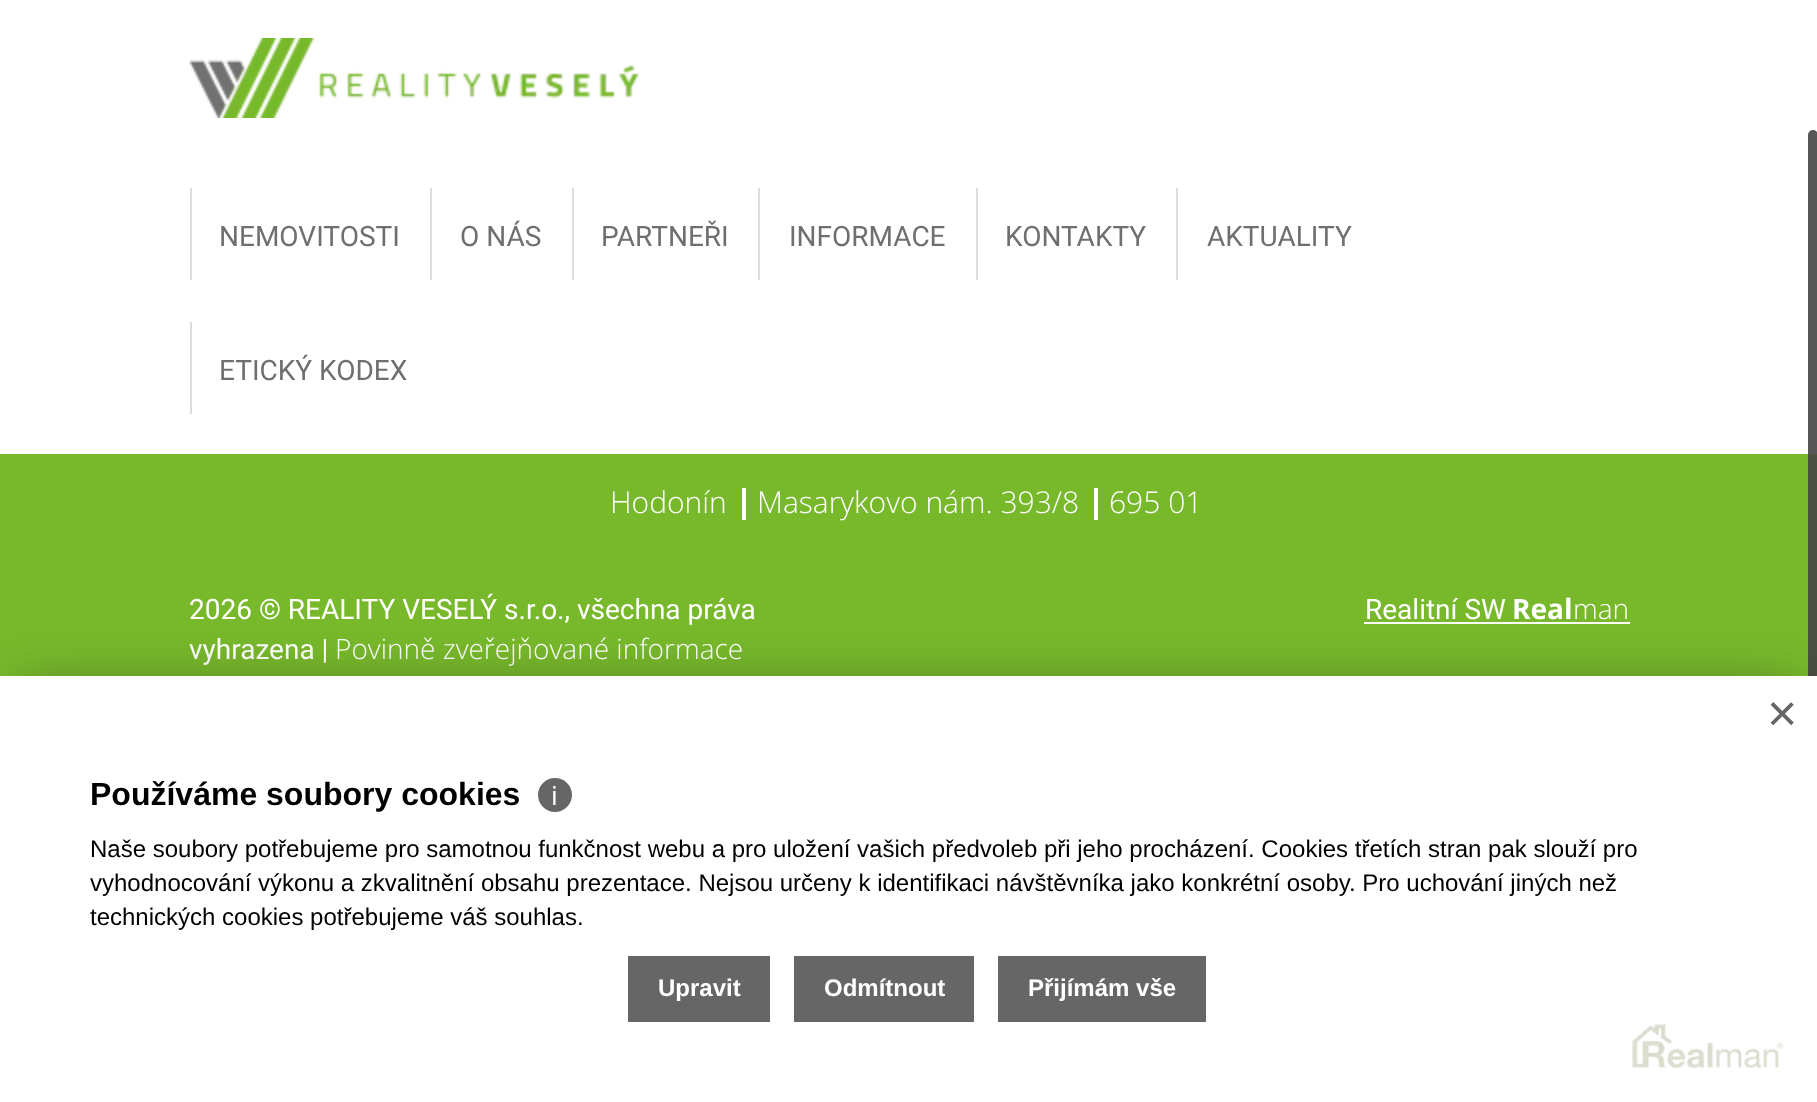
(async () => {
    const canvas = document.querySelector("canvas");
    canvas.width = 1817;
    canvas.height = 1102;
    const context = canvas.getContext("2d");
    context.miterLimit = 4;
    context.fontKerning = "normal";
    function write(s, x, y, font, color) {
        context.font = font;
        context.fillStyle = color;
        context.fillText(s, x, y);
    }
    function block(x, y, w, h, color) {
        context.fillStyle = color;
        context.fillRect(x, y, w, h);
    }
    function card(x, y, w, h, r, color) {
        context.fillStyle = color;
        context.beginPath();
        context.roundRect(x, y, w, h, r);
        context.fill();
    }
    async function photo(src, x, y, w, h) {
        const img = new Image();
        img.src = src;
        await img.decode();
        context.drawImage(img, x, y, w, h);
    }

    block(0, 0, 1817, 1102, "rgb(120, 185, 44)");
    block(0, 0, 1817, 454, "rgb(255, 255, 255)");
    await photo("media/1.png", 189, 38, 449, 80);
    block(190, 188, 2, 92, "rgb(222, 221, 221)");
    write("NEMOVITOSTI", 219, 246, "28px Roboto", "rgb(112, 110, 111)");
    block(430, 188, 2, 92, "rgb(222, 221, 221)");
    write("O NÁS", 460, 246, "28px Roboto", "rgb(112, 110, 111)");
    block(572, 188, 2, 92, "rgb(222, 221, 221)");
    write("PARTNEŘI", 601, 246, "28px Roboto", "rgb(112, 110, 111)");
    block(758, 188, 2, 92, "rgb(222, 221, 221)");
    write("INFORMACE", 789, 246, "28px Roboto", "rgb(112, 110, 111)");
    block(976, 188, 2, 92, "rgb(222, 221, 221)");
    write("KONTAKTY", 1005, 246, "28px Roboto", "rgb(112, 110, 111)");
    block(1176, 188, 2, 92, "rgb(222, 221, 221)");
    write("AKTUALITY", 1207, 246, "28px Roboto", "rgb(112, 110, 111)");
    block(190, 322, 2, 92, "rgb(222, 221, 221)");
    write("ETICKÝ KODEX", 219, 380, "28px Roboto", "rgb(112, 110, 111)");
    card(1808, 130, 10, 826, 5, "rgba(68, 68, 68, 0.9)");
    block(742, 488, 4, 32, "rgb(255, 255, 255)");
    write("Hodonín", 610, 513, "300 30px Open Sans", "rgb(255, 255, 255)");
    block(1094, 488, 4, 32, "rgb(255, 255, 255)");
    write("Masarykovo nám. 393/8", 757, 513, "300 30px Open Sans", "rgb(255, 255, 255)");
    write("695 01", 1109, 513, "300 30px Open Sans", "rgb(255, 255, 255)");
    write("2026 © REALITY VESELÝ s.r.o., všechna práva", 189, 619, "28px Roboto", "rgb(255, 255, 255)");
    write("vyhrazena |", 189, 659, "28px Roboto", "rgb(255, 255, 255)");
    write("Povinně zveřejňované informace", 335, 659, "300 28px Open Sans", "rgb(255, 255, 255)");
    write("Realitní SW", 1365, 619, "28px Roboto", "rgb(255, 255, 255)");
    block(1364, 622, 266, 2, "rgb(255, 255, 255)");
    write("Real", 1512, 619, "bold 28px Open Sans", "rgb(255, 255, 255)");
    write("man", 1573, 619, "300 28px Open Sans", "rgb(255, 255, 255)");
    context.fillStyle = "rgba(0, 0, 0, 0.5)";
    context.filter = "blur(30px)";
    context.beginPath();
    context.rect(20, 696, 1778, 386);
    context.fill();
    context.filter = "none";
    block(0, 676, 1817, 426, "rgb(255, 255, 255)");
    await photo("media/2.png", 1632, 1024, 152, 44);
    write("×", 1767, 731, "52px Liberation Sans", "rgb(102, 102, 102)");
    write("Používáme soubory cookies", 90, 805, "bold 32px Liberation Sans", "rgb(0, 0, 0)");
    context.fillStyle = "rgb(102, 102, 102)";
    context.beginPath();
    context.arc(555, 795, 17, 0, Math.PI * 2);
    context.fill();
    write("ℹ", 551, 805, "26px Noto Sans", "rgb(255, 255, 255)");
    write("Naše soubory potřebujeme pro samotnou funkčnost webu a pro uložení vašich předvoleb při jeho procházení. Cookies třetích stran pak slouží pro", 90, 857, "24px Liberation Sans", "rgb(0, 0, 0)");
    write("vyhodnocování výkonu a zkvalitnění obsahu prezentace. Nejsou určeny k identifikaci návštěvníka jako konkrétní osoby. Pro uchování jiných než", 90, 891, "24px Liberation Sans", "rgb(0, 0, 0)");
    write("technických cookies potřebujeme váš souhlas.", 90, 925, "24px Liberation Sans", "rgb(0, 0, 0)");
    block(628, 956, 142, 66, "rgb(102, 102, 102)");
    write("Upravit", 658, 996, "bold 24px Liberation Sans", "rgb(255, 255, 255)");
    block(794, 956, 180, 66, "rgb(102, 102, 102)");
    write("Odmítnout", 824, 996, "bold 24px Liberation Sans", "rgb(255, 255, 255)");
    block(998, 956, 208, 66, "rgb(102, 102, 102)");
    write("Přijímám vše", 1028, 996, "bold 24px Liberation Sans", "rgb(255, 255, 255)");
})();
